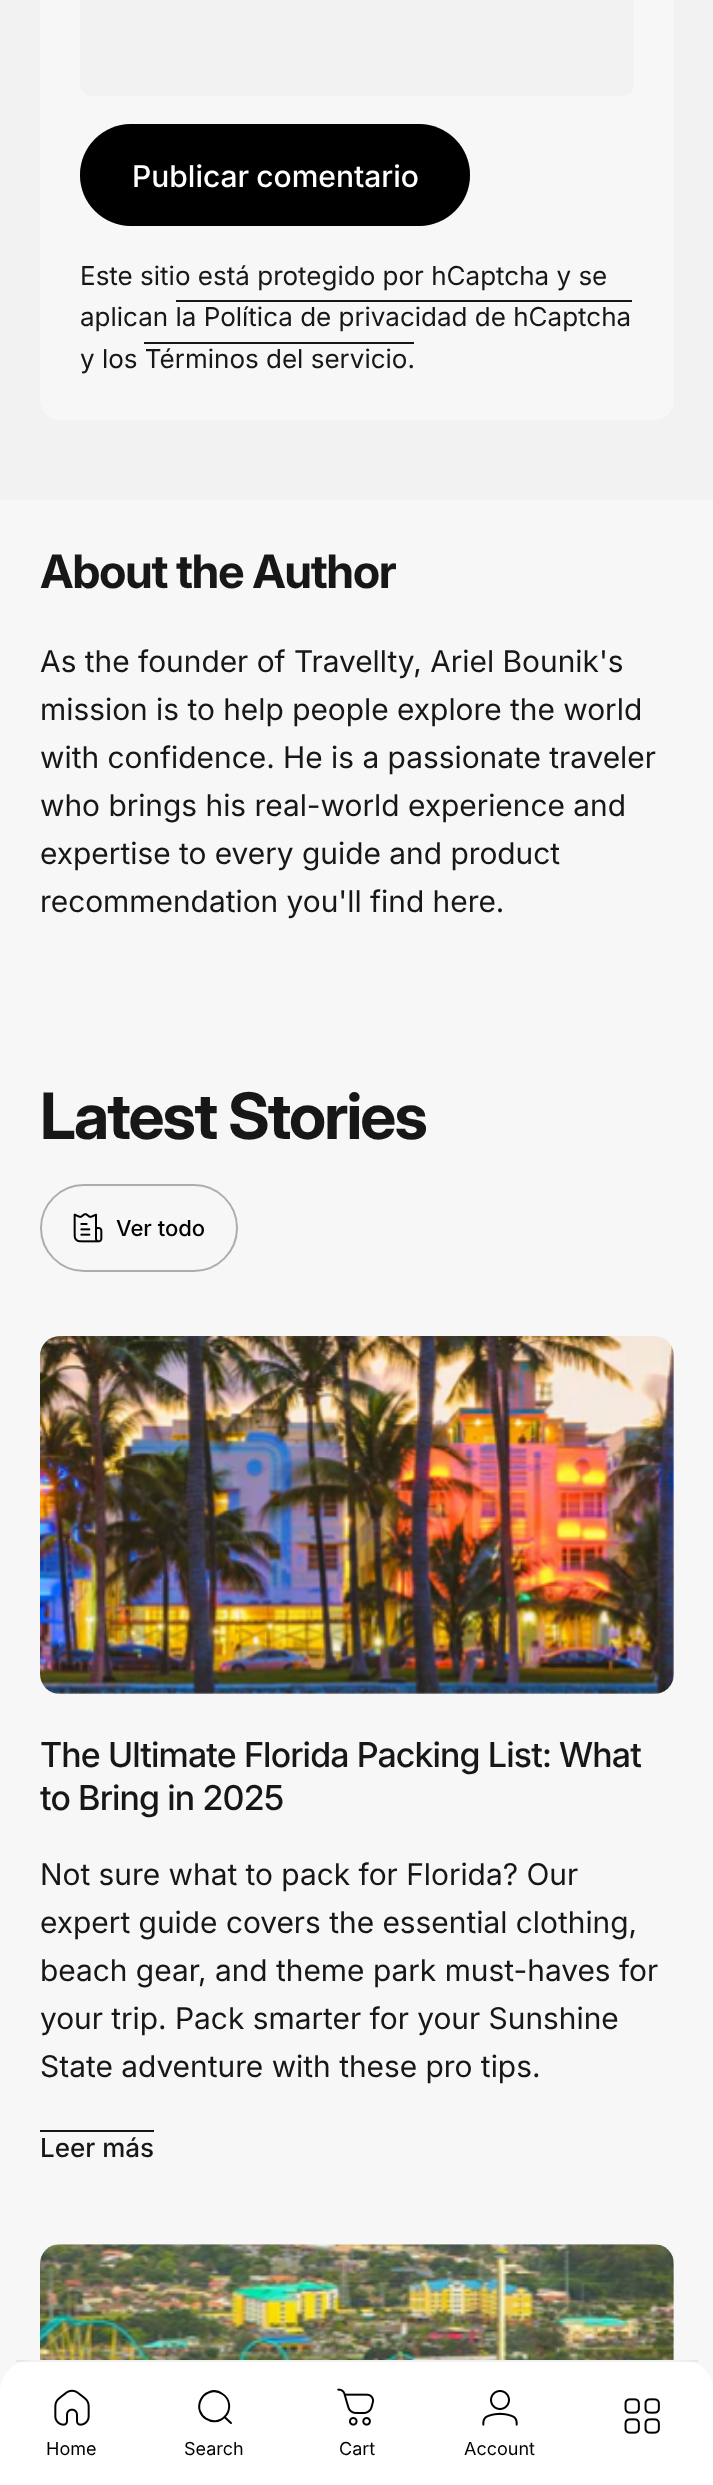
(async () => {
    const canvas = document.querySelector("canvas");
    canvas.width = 713;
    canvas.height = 2485;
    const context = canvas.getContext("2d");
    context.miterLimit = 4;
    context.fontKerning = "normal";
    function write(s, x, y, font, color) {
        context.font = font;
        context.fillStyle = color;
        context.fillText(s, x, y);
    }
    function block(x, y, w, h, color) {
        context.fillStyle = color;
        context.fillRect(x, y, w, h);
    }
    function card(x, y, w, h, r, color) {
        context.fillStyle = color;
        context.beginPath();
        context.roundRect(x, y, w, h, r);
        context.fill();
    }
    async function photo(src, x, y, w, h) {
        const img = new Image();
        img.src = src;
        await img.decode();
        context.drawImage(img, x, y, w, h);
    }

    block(0, 0, 713, 2485, "rgb(247, 247, 247)");
    block(0, 0, 713, 500, "rgb(242, 242, 242)");
    card(40, -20, 634, 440, 20, "rgb(247, 247, 247)");
    card(80, -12, 554, 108, 12, "rgb(242, 242, 242)");
    card(80, 124, 390, 102, 51, "rgb(0, 0, 0)");
    context.beginPath();
    context.roundRect(81, 125, 388, 100, 50);
    context.strokeStyle = "rgba(0, 0, 0, 0.3)";
    context.lineWidth = 2;
    context.stroke();
    context.wordSpacing = "-1px";
    write("Publicar comentario", 132, 187, "500 30px 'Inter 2'", "rgb(255, 255, 255)");
    context.wordSpacing = "0px";
    write("Este sitio está protegido por hCaptcha y se", 80, 285, "26px Inter", "rgb(23, 23, 23)");
    block(176, 300, 456, 2, "rgb(23, 23, 23)");
    write("aplican la Política de privacidad de hCaptcha", 80, 326, "26px Inter", "rgb(23, 23, 23)");
    block(144, 342, 270, 2, "rgb(23, 23, 23)");
    write("y los Términos del servicio.", 80, 368, "26px Inter", "rgb(23, 23, 23)");
    context.letterSpacing = "-1.4px";
    write("About the Author", 40, 588, "bold 46px Inter", "rgb(23, 23, 23)");
    context.letterSpacing = "0px";
    write("As the founder of Travellty, Ariel Bounik's", 40, 672, "30px 'Inter 2'", "rgb(23, 23, 23)");
    write("mission is to help people explore the world", 40, 720, "30px 'Inter 2'", "rgb(23, 23, 23)");
    write("with confidence. He is a passionate traveler", 40, 768, "30px 'Inter 2'", "rgb(23, 23, 23)");
    write("who brings his real-world experience and", 40, 816, "30px 'Inter 2'", "rgb(23, 23, 23)");
    write("expertise to every guide and product", 40, 864, "30px 'Inter 2'", "rgb(23, 23, 23)");
    write("recommendation you'll find here.", 40, 912, "30px 'Inter 2'", "rgb(23, 23, 23)");
    context.letterSpacing = "-1.9px";
    write("Latest Stories", 40, 1139, "bold 64px 'Inter 2'", "rgb(23, 23, 23)");
    context.beginPath();
    context.roundRect(41, 1185, 196, 86, 43);
    context.strokeStyle = "rgb(173, 173, 173)";
    context.stroke();
    await photo("media/1.png", 73, 1213, 30, 30);
    context.letterSpacing = "0px";
    write("Ver todo", 116, 1236, "500 22px 'Inter 2'", "rgb(0, 0, 0)");
    card(40, 1336, 634, 358, 20, "rgb(255, 255, 255)");
    await photo("media/2.png", 40, 1336, 634, 358);
    context.letterSpacing = "-0.85px";
    write("The Ultimate Florida Packing List: What", 40, 1767, "500 34.25px Inter", "rgb(23, 23, 23)");
    write("to Bring in 2025", 40, 1810, "500 34.25px Inter", "rgb(23, 23, 23)");
    context.letterSpacing = "0px";
    write("Not sure what to pack for Florida? Our", 40, 1885, "30px 'Inter 2'", "rgb(23, 23, 23)");
    write("expert guide covers the essential clothing,", 40, 1933, "30px 'Inter 2'", "rgb(23, 23, 23)");
    write("beach gear, and theme park must-haves for", 40, 1981, "30px 'Inter 2'", "rgb(23, 23, 23)");
    write("your trip. Pack smarter for your Sunshine", 40, 2029, "30px 'Inter 2'", "rgb(23, 23, 23)");
    write("State adventure with these pro tips.", 40, 2077, "30px 'Inter 2'", "rgb(23, 23, 23)");
    write("Leer más", 40, 2157, "500 26px 'Inter 2'", "rgb(23, 23, 23)");
    block(40, 2130, 114, 2, "rgb(23, 23, 23)");
    card(40, 2244, 634, 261, 20, "rgb(255, 255, 255)");
    await photo("media/3.png", 40, 2244, 634, 116);
    context.beginPath();
    context.moveTo(32, 2360);
    context.lineTo(682, 2360);
    context.bezierCurveTo(699.5, 2360, 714, 2374.5, 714, 2392);
    context.lineTo(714, 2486);
    context.lineTo(0, 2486);
    context.lineTo(0, 2392);
    context.bezierCurveTo(0, 2374.5, 14.5, 2360, 32, 2360);
    context.closePath();
    context.fill();
    block(16, 2360, 682, 2, "rgba(0, 0, 0, 0.06)");
    await photo("media/4.png", 624, 2398, 36, 36);
    await photo("media/5.png", 54, 2389, 36, 37);
    write("Home", 46, 2455, "18px Inter", "rgb(0, 0, 0)");
    context.beginPath();
    context.moveTo(231, 2423);
    context.lineTo(224.5, 2417);
    context.moveTo(224.5, 2417);
    context.bezierCurveTo(231.5, 2410.5, 230.5, 2399, 222.5, 2394);
    context.bezierCurveTo(218.5, 2391, 213, 2390.5, 208.5, 2392.5);
    context.bezierCurveTo(204.5, 2394, 202, 2397, 200.5, 2400.5);
    context.bezierCurveTo(194, 2416, 213.5, 2428, 224.5, 2417);
    context.closePath();
    context.strokeStyle = "rgb(0, 0, 0)";
    context.lineCap = "round";
    context.lineJoin = "round";
    context.stroke();
    write("Search", 184, 2455, "18px Inter", "rgb(0, 0, 0)");
    await photo("media/6.png", 337, 2388, 38, 38);
    write("Cart", 339, 2455, "18px Inter", "rgb(0, 0, 0)");
    await photo("media/7.png", 482, 2390, 36, 36);
    write("Account", 464, 2455, "18px Inter", "rgb(0, 0, 0)");
})();
